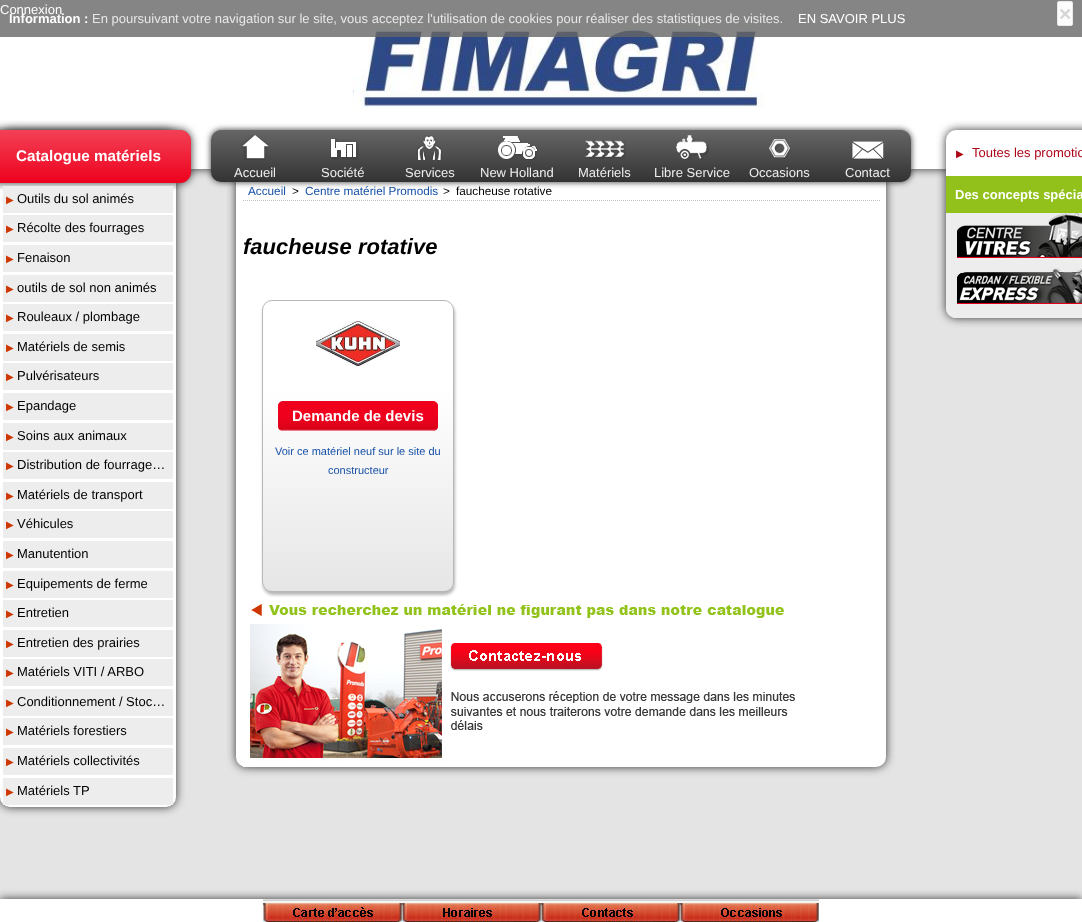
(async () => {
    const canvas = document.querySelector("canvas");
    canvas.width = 1082;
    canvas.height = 922;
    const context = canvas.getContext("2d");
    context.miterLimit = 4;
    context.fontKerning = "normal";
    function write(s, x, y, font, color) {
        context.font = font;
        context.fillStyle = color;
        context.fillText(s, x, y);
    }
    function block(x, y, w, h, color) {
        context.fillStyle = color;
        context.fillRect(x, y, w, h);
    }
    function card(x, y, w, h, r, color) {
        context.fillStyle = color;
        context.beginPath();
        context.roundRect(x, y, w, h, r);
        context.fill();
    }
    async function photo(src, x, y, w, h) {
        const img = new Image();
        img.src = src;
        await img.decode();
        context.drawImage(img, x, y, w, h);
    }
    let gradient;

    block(0, 0, 1082, 922, "rgb(228, 228, 228)");
    context.fillStyle = "rgb(51, 51, 51)";
    context.filter = "blur(5px)";
    context.beginPath();
    context.rect(0, 0, 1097, 169);
    context.fill();
    context.filter = "none";
    block(0, 0, 1082, 169, "rgb(255, 255, 255)");
    await photo("media/1.png", 353, 23, 411, 85);
    block(0, 0, 1082, 37, "rgba(102, 102, 102, 0.8)");
    write("Connexion", 0, 14, "13px Liberation Sans", "rgb(255, 255, 255)");
    write("Information :", 9, 23, "bold 13px Liberation Sans", "rgb(255, 255, 255)");
    write("En poursuivant votre navigation sur le site, vous acceptez l'utilisation de cookies pour réaliser des statistiques de visites.", 92, 23, "13px Liberation Sans", "rgb(231, 231, 231)");
    write("EN SAVOIR PLUS", 798, 23, "13px Liberation Sans", "rgb(255, 255, 255)");
    context.fillStyle = "rgb(252, 252, 252)";
    context.beginPath();
    context.roundRect(1057.5, 1.5, 15, 24, 1.5);
    context.fill();
    context.strokeStyle = "rgb(233, 233, 233)";
    context.stroke();
    write("×", 1059, 21, "bold 21px Liberation Sans", "rgb(214, 214, 214)");
    context.fillStyle = "rgb(51, 51, 51)";
    context.filter = "blur(5px)";
    context.beginPath();
    context.roundRect(0, 130, 176, 677, 10);
    context.fill();
    context.filter = "none";
    card(0, 130, 176, 677, 10, "rgb(255, 255, 255)");
    context.fillStyle = "rgb(51, 51, 51)";
    context.filter = "blur(4px)";
    context.beginPath();
    context.roundRect(-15, 130, 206, 53, 11);
    context.fill();
    context.filter = "none";
    card(-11, 130, 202, 53, 11, "rgb(238, 1, 29)");
    gradient = context.createLinearGradient(88, 130, 88, 183);
    gradient.addColorStop(0, "rgba(255, 255, 255, 0.25)");
    gradient.addColorStop(1, "rgba(255, 255, 255, 0)");
    context.fillStyle = gradient;
    context.beginPath();
    context.roundRect(-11, 130, 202, 53, 11);
    context.fill();
    write("Catalogue matériels", 16, 161, "bold 15.25px Liberation Sans", "rgb(255, 255, 255)");
    block(3, 186, 170, 27, "rgb(237, 237, 237)");
    write("▶", 6, 203, "10px DejaVu Sans", "rgb(206, 55, 2)");
    write("Outils du sol animés", 17, 203, "13px Liberation Sans", "rgb(0, 0, 0)");
    block(3, 215, 170, 27, "rgb(237, 237, 237)");
    write("▶", 6, 232, "10px DejaVu Sans", "rgb(206, 55, 2)");
    write("Récolte des fourrages", 17, 232, "13px Liberation Sans", "rgb(0, 0, 0)");
    block(3, 245, 170, 27, "rgb(237, 237, 237)");
    write("▶", 6, 262, "10px DejaVu Sans", "rgb(206, 55, 2)");
    write("Fenaison", 17, 262, "13px Liberation Sans", "rgb(0, 0, 0)");
    block(3, 275, 170, 27, "rgb(237, 237, 237)");
    write("▶", 6, 292, "10px DejaVu Sans", "rgb(206, 55, 2)");
    write("outils de sol non animés", 17, 292, "13px Liberation Sans", "rgb(0, 0, 0)");
    block(3, 304, 170, 27, "rgb(237, 237, 237)");
    write("▶", 6, 321, "10px DejaVu Sans", "rgb(206, 55, 2)");
    write("Rouleaux / plombage", 17, 321, "13px Liberation Sans", "rgb(0, 0, 0)");
    block(3, 334, 170, 27, "rgb(237, 237, 237)");
    write("▶", 6, 351, "10px DejaVu Sans", "rgb(206, 55, 2)");
    write("Matériels de semis", 17, 351, "13px Liberation Sans", "rgb(0, 0, 0)");
    block(3, 363, 170, 27, "rgb(237, 237, 237)");
    write("▶", 6, 380, "10px DejaVu Sans", "rgb(206, 55, 2)");
    write("Pulvérisateurs", 17, 380, "13px Liberation Sans", "rgb(0, 0, 0)");
    block(3, 393, 170, 27, "rgb(237, 237, 237)");
    write("▶", 6, 410, "10px DejaVu Sans", "rgb(206, 55, 2)");
    write("Epandage", 17, 410, "13px Liberation Sans", "rgb(0, 0, 0)");
    block(3, 423, 170, 27, "rgb(237, 237, 237)");
    write("▶", 6, 440, "10px DejaVu Sans", "rgb(206, 55, 2)");
    write("Soins aux animaux", 17, 440, "13px Liberation Sans", "rgb(0, 0, 0)");
    block(3, 452, 170, 27, "rgb(237, 237, 237)");
    write("▶", 6, 469, "10px DejaVu Sans", "rgb(206, 55, 2)");
    write("Distribution de fourrage…", 17, 469, "13px Liberation Sans", "rgb(0, 0, 0)");
    block(3, 482, 170, 27, "rgb(237, 237, 237)");
    write("▶", 6, 499, "10px DejaVu Sans", "rgb(206, 55, 2)");
    write("Matériels de transport", 17, 499, "13px Liberation Sans", "rgb(0, 0, 0)");
    block(3, 511, 170, 27, "rgb(237, 237, 237)");
    write("▶", 6, 528, "10px DejaVu Sans", "rgb(206, 55, 2)");
    write("Véhicules", 17, 528, "13px Liberation Sans", "rgb(0, 0, 0)");
    block(3, 541, 170, 27, "rgb(237, 237, 237)");
    write("▶", 6, 558, "10px DejaVu Sans", "rgb(206, 55, 2)");
    write("Manutention", 17, 558, "13px Liberation Sans", "rgb(0, 0, 0)");
    block(3, 571, 170, 27, "rgb(237, 237, 237)");
    write("▶", 6, 588, "10px DejaVu Sans", "rgb(206, 55, 2)");
    write("Equipements de ferme", 17, 588, "13px Liberation Sans", "rgb(0, 0, 0)");
    block(3, 600, 170, 27, "rgb(237, 237, 237)");
    write("▶", 6, 617, "10px DejaVu Sans", "rgb(206, 55, 2)");
    write("Entretien", 17, 617, "13px Liberation Sans", "rgb(0, 0, 0)");
    block(3, 630, 170, 27, "rgb(237, 237, 237)");
    write("▶", 6, 647, "10px DejaVu Sans", "rgb(206, 55, 2)");
    write("Entretien des prairies", 17, 647, "13px Liberation Sans", "rgb(0, 0, 0)");
    block(3, 659, 170, 27, "rgb(237, 237, 237)");
    write("▶", 6, 676, "10px DejaVu Sans", "rgb(206, 55, 2)");
    write("Matériels VITI / ARBO", 17, 676, "13px Liberation Sans", "rgb(0, 0, 0)");
    block(3, 689, 170, 27, "rgb(237, 237, 237)");
    write("▶", 6, 706, "10px DejaVu Sans", "rgb(206, 55, 2)");
    write("Conditionnement / Stoc…", 17, 706, "13px Liberation Sans", "rgb(0, 0, 0)");
    block(3, 718, 170, 27, "rgb(237, 237, 237)");
    write("▶", 6, 735, "10px DejaVu Sans", "rgb(206, 55, 2)");
    write("Matériels forestiers", 17, 735, "13px Liberation Sans", "rgb(0, 0, 0)");
    block(3, 748, 170, 27, "rgb(237, 237, 237)");
    write("▶", 6, 765, "10px DejaVu Sans", "rgb(206, 55, 2)");
    write("Matériels collectivités", 17, 765, "13px Liberation Sans", "rgb(0, 0, 0)");
    block(3, 778, 170, 27, "rgb(237, 237, 237)");
    write("▶", 6, 795, "10px DejaVu Sans", "rgb(206, 55, 2)");
    write("Matériels TP", 17, 795, "13px Liberation Sans", "rgb(0, 0, 0)");
    context.fillStyle = "rgb(51, 51, 51)";
    context.filter = "blur(5px)";
    context.beginPath();
    context.roundRect(236, 169, 650, 598, 10);
    context.fill();
    context.filter = "none";
    card(236, 169, 650, 598, 10, "rgb(255, 255, 255)");
    context.beginPath();
    context.moveTo(243, 200.5);
    context.lineTo(880, 200.5);
    context.strokeStyle = "rgb(192, 192, 192)";
    context.setLineDash([1, 1]);
    context.stroke();
    write("Accueil", 248, 195, "11.75px Liberation Sans", "rgb(24, 81, 166)");
    write(">", 292, 195, "11.75px Liberation Sans", "rgb(0, 0, 0)");
    write("Centre matériel Promodis", 305, 195, "11.75px Liberation Sans", "rgb(24, 81, 166)");
    write(">", 443, 195, "11.75px Liberation Sans", "rgb(0, 0, 0)");
    write("faucheuse rotative", 456, 195, "11.75px Liberation Sans", "rgb(0, 0, 0)");
    write("faucheuse rotative", 243, 254, "italic bold 22px Liberation Sans", "rgb(0, 0, 0)");
    context.fillStyle = "rgb(184, 184, 184)";
    context.filter = "blur(1.5px)";
    context.beginPath();
    context.roundRect(263, 303, 192, 292, 10);
    context.fill();
    context.filter = "none";
    context.save();
    context.beginPath();
    context.roundRect(262, 300, 192, 292, 10);
    context.clip();
    gradient = context.createLinearGradient(358, 301, 358, 591);
    gradient.addColorStop(0.3, "rgb(255, 255, 255)");
    gradient.addColorStop(1, "rgb(230, 230, 230)");
    context.fillStyle = gradient;
    context.fillRect(262, 301, 192, 290);
    context.restore();
    context.beginPath();
    context.roundRect(262.5, 300.5, 191, 291, 9.5);
    context.strokeStyle = "rgb(184, 184, 184)";
    context.setLineDash([]);
    context.stroke();
    await photo("media/2.png", 316, 321, 84, 45);
    card(278, 401, 160, 30, 5, "rgb(238, 1, 29)");
    await photo("media/3.png", 278, 404, 160, 27);
    write("Demande de devis", 292, 421, "bold 15px Liberation Sans", "rgb(255, 255, 255)");
    write("Voir ce matériel neuf sur le site du", 275, 455, "11px Liberation Sans", "rgb(24, 81, 166)");
    write("constructeur", 328, 474, "11px Liberation Sans", "rgb(24, 81, 166)");
    await photo("media/4.png", 243, 603, 552, 164);
    context.fillStyle = "rgb(51, 51, 51)";
    context.filter = "blur(5px)";
    context.beginPath();
    context.roundRect(946, 130, 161, 188, 10);
    context.fill();
    context.filter = "none";
    card(946, 130, 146, 188, 10, "rgb(255, 255, 255)");
    write("▶", 956, 157, "10px DejaVu Sans", "rgb(173, 6, 23)");
    write("Toutes les promotio", 972, 157, "13px Liberation Sans", "rgb(173, 6, 23)");
    block(946, 176, 136, 37, "rgb(145, 193, 26)");
    write("Des concepts spécia", 955, 199, "bold 13px Liberation Sans", "rgb(255, 255, 255)");
    context.fillStyle = "rgb(237, 237, 237)";
    context.beginPath();
    context.moveTo(946, 213);
    context.lineTo(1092, 213);
    context.lineTo(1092, 308);
    context.bezierCurveTo(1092, 313.5, 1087.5, 318, 1082, 318);
    context.lineTo(956, 318);
    context.bezierCurveTo(950.5, 318, 946, 313.5, 946, 308);
    context.closePath();
    context.fill();
    await photo("media/5.png", 957, 213, 125, 45);
    await photo("media/6.png", 957, 268, 125, 36);
    context.fillStyle = "rgb(51, 51, 51)";
    context.filter = "blur(3px)";
    context.beginPath();
    context.roundRect(211, 130, 700, 52, 10);
    context.fill();
    context.filter = "none";
    gradient = context.createLinearGradient(561, 130, 561, 182);
    gradient.addColorStop(0, "rgb(102, 102, 102)");
    gradient.addColorStop(1, "rgb(51, 51, 51)");
    context.fillStyle = gradient;
    context.beginPath();
    context.roundRect(211, 130, 700, 52, 10);
    context.fill();
    await photo("media/7.png", 241, 135, 28, 25);
    write("Accueil", 234, 177, "13px Liberation Sans", "rgb(238, 238, 238)");
    await photo("media/8.png", 330, 138, 29, 22);
    write("Société", 321, 177, "13px Liberation Sans", "rgb(238, 238, 238)");
    await photo("media/9.png", 417, 135, 25, 25);
    write("Services", 405, 177, "13px Liberation Sans", "rgb(238, 238, 238)");
    await photo("media/10.png", 498, 136, 40, 24);
    write("New Holland", 480, 177, "13px Liberation Sans", "rgb(238, 238, 238)");
    await photo("media/11.png", 585, 140, 41, 19);
    write("Matériels", 578, 177, "13px Liberation Sans", "rgb(238, 238, 238)");
    await photo("media/12.png", 676, 135, 33, 25);
    write("Libre Service", 654, 177, "13px Liberation Sans", "rgb(238, 238, 238)");
    await photo("media/13.png", 769, 139, 22, 20);
    write("Occasions", 749, 177, "13px Liberation Sans", "rgb(238, 238, 238)");
    await photo("media/14.png", 851, 141, 33, 19);
    write("Contact", 845, 177, "13px Liberation Sans", "rgb(238, 238, 238)");
    context.fillStyle = "rgb(51, 51, 51)";
    context.filter = "blur(5px)";
    context.beginPath();
    context.rect(0, 899, 1082, 23);
    context.fill();
    context.filter = "none";
    block(0, 899, 1082, 23, "rgb(255, 255, 255)");
    await photo("media/15.png", 263, 899, 139, 23);
    await photo("media/16.png", 402, 899, 139, 23);
    await photo("media/17.png", 541, 899, 139, 23);
    await photo("media/18.png", 680, 899, 139, 23);
})();
